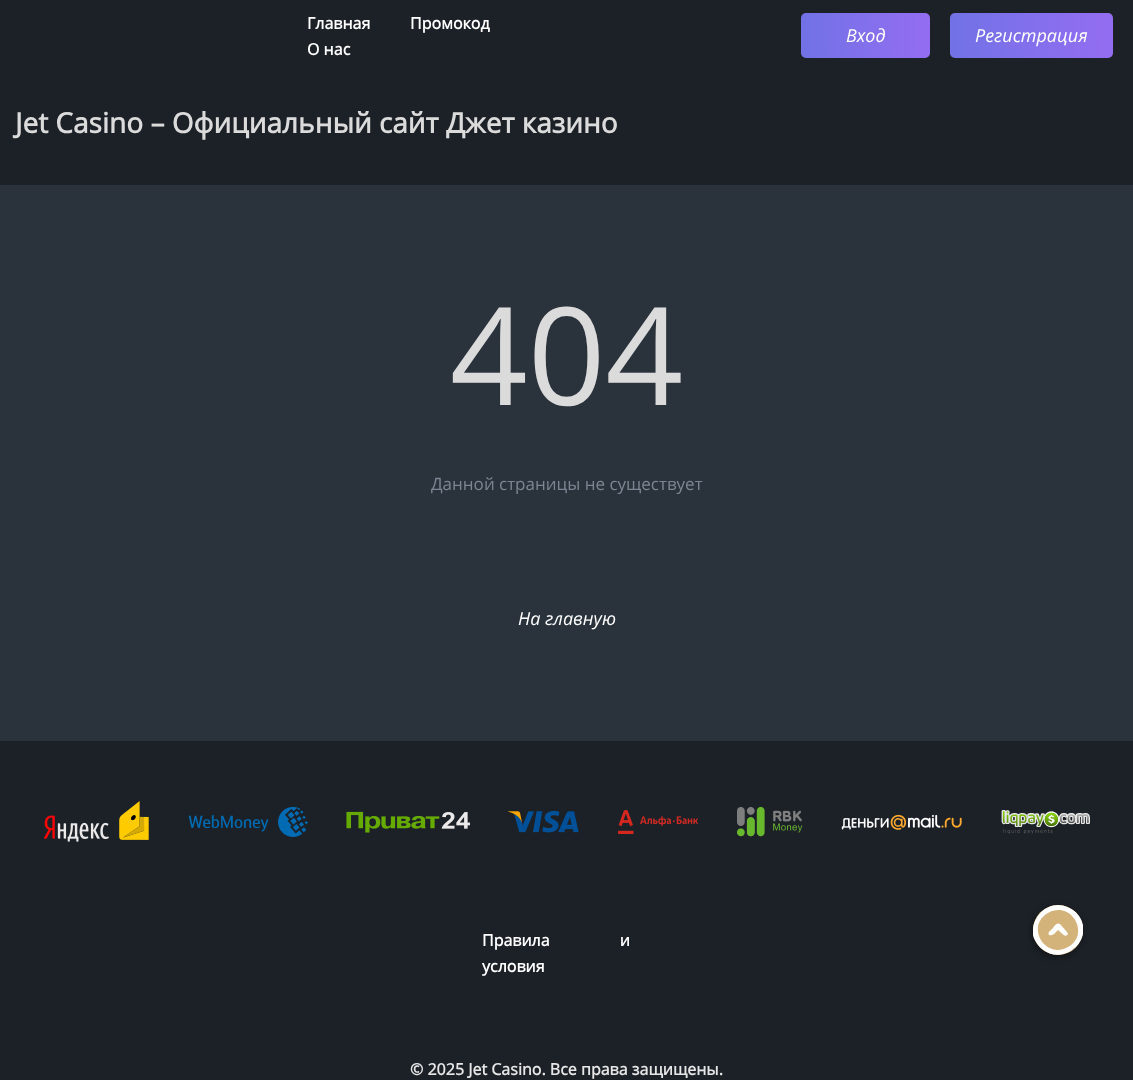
(async () => {
    const canvas = document.querySelector("canvas");
    canvas.width = 1133;
    canvas.height = 1080;
    const context = canvas.getContext("2d");
    context.miterLimit = 4;
    context.fontKerning = "normal";
    function write(s, x, y, font, color) {
        context.font = font;
        context.fillStyle = color;
        context.fillText(s, x, y);
    }
    function block(x, y, w, h, color) {
        context.fillStyle = color;
        context.fillRect(x, y, w, h);
    }
    async function photo(src, x, y, w, h) {
        const img = new Image();
        img.src = src;
        await img.decode();
        context.drawImage(img, x, y, w, h);
    }
    let gradient;

    block(0, 0, 1133, 1080, "rgb(28, 33, 39)");
    write("Главная", 307, 29, "bold 16px Open Sans", "rgb(255, 255, 255)");
    write("Промокод", 410, 29, "bold 16px Open Sans", "rgb(255, 255, 255)");
    write("О нас", 307, 55, "bold 16px Open Sans", "rgb(255, 255, 255)");
    gradient = context.createLinearGradient(801, 36, 930, 35);
    gradient.addColorStop(0.03, "rgb(114, 114, 230)");
    gradient.addColorStop(0.97, "rgb(147, 109, 241)");
    context.fillStyle = gradient;
    context.beginPath();
    context.roundRect(801, 13, 129, 45, 5);
    context.fill();
    write("Вход", 846, 42, "italic 18px Open Sans", "rgb(255, 255, 255)");
    gradient = context.createLinearGradient(950, 36, 1113, 35);
    gradient.addColorStop(0.03, "rgb(114, 114, 230)");
    gradient.addColorStop(0.97, "rgb(147, 109, 241)");
    context.fillStyle = gradient;
    context.beginPath();
    context.roundRect(950, 13, 163, 45, 5);
    context.fill();
    write("Регистрация", 975, 42, "italic 18px Open Sans", "rgb(255, 255, 255)");
    write("Jet Casino – Официальный сайт Джет казино", 15, 133, "bold 28px Open Sans", "rgb(219, 219, 219)");
    block(0, 185, 1133, 556, "rgb(42, 50, 59)");
    write("404", 450, 405, "136px Open Sans", "rgb(219, 219, 219)");
    write("Данной страницы не существует", 431, 490, "17px Open Sans", "rgb(124, 134, 146)");
    write("На главную", 518, 625, "italic 18px Open Sans", "rgb(255, 255, 255)");
    await photo("media/1.png", 43, 801, 106, 41);
    await photo("media/2.png", 188, 806, 120, 31);
    await photo("media/3.png", 346, 811, 124, 22);
    await photo("media/4.png", 508, 810, 71, 23);
    await photo("media/5.png", 618, 809, 80, 25);
    await photo("media/6.png", 737, 806, 66, 31);
    await photo("media/7.png", 841, 814, 121, 16);
    await photo("media/8.png", 1001, 810, 89, 24);
    context.wordSpacing = "66px";
    write("Правила и", 482, 946, "bold 16px Open Sans", "rgb(255, 255, 255)");
    context.wordSpacing = "0px";
    write("условия", 482, 972, "bold 16px Open Sans", "rgb(255, 255, 255)");
    write("© 2025 Jet Casino. Все права защищены.", 410, 1075, "bold 16px Open Sans", "rgb(230, 230, 230)");
    context.fillStyle = "rgba(0, 0, 0, 0.42)";
    context.filter = "blur(3px)";
    context.beginPath();
    context.roundRect(1032, 907, 50, 50, 25);
    context.fill();
    context.filter = "none";
    context.fillStyle = "rgb(212, 179, 122)";
    context.beginPath();
    context.arc(1058, 930, 25, 0, Math.PI * 2);
    context.fill();
    context.save();
    context.beginPath();
    context.rect(1033, 905, 50, 50);
    context.clip();
    context.fillStyle = "rgb(255, 255, 255)";
    context.beginPath();
    context.moveTo(1058, 905);
    context.bezierCurveTo(1043, 905, 1031, 920, 1033, 935);
    context.bezierCurveTo(1034, 940, 1038, 946, 1042, 949);
    context.bezierCurveTo(1064, 967, 1095, 939, 1079, 916);
    context.bezierCurveTo(1074, 909, 1066, 905, 1058, 905);
    context.closePath();
    context.moveTo(1068, 947);
    context.bezierCurveTo(1091, 934, 1071, 900, 1048, 913);
    context.bezierCurveTo(1025, 926, 1045, 960, 1068, 947);
    context.closePath();
    context.moveTo(1060, 924);
    context.lineTo(1067, 932);
    context.lineTo(1068, 934);
    context.bezierCurveTo(1065, 939, 1060, 931, 1058, 930);
    context.lineTo(1054, 934);
    context.bezierCurveTo(1051, 936, 1047, 936, 1049, 932);
    context.lineTo(1053, 928);
    context.bezierCurveTo(1054, 926, 1057, 922, 1060, 924);
    context.closePath();
    context.fill("evenodd");
    context.restore();
})();
